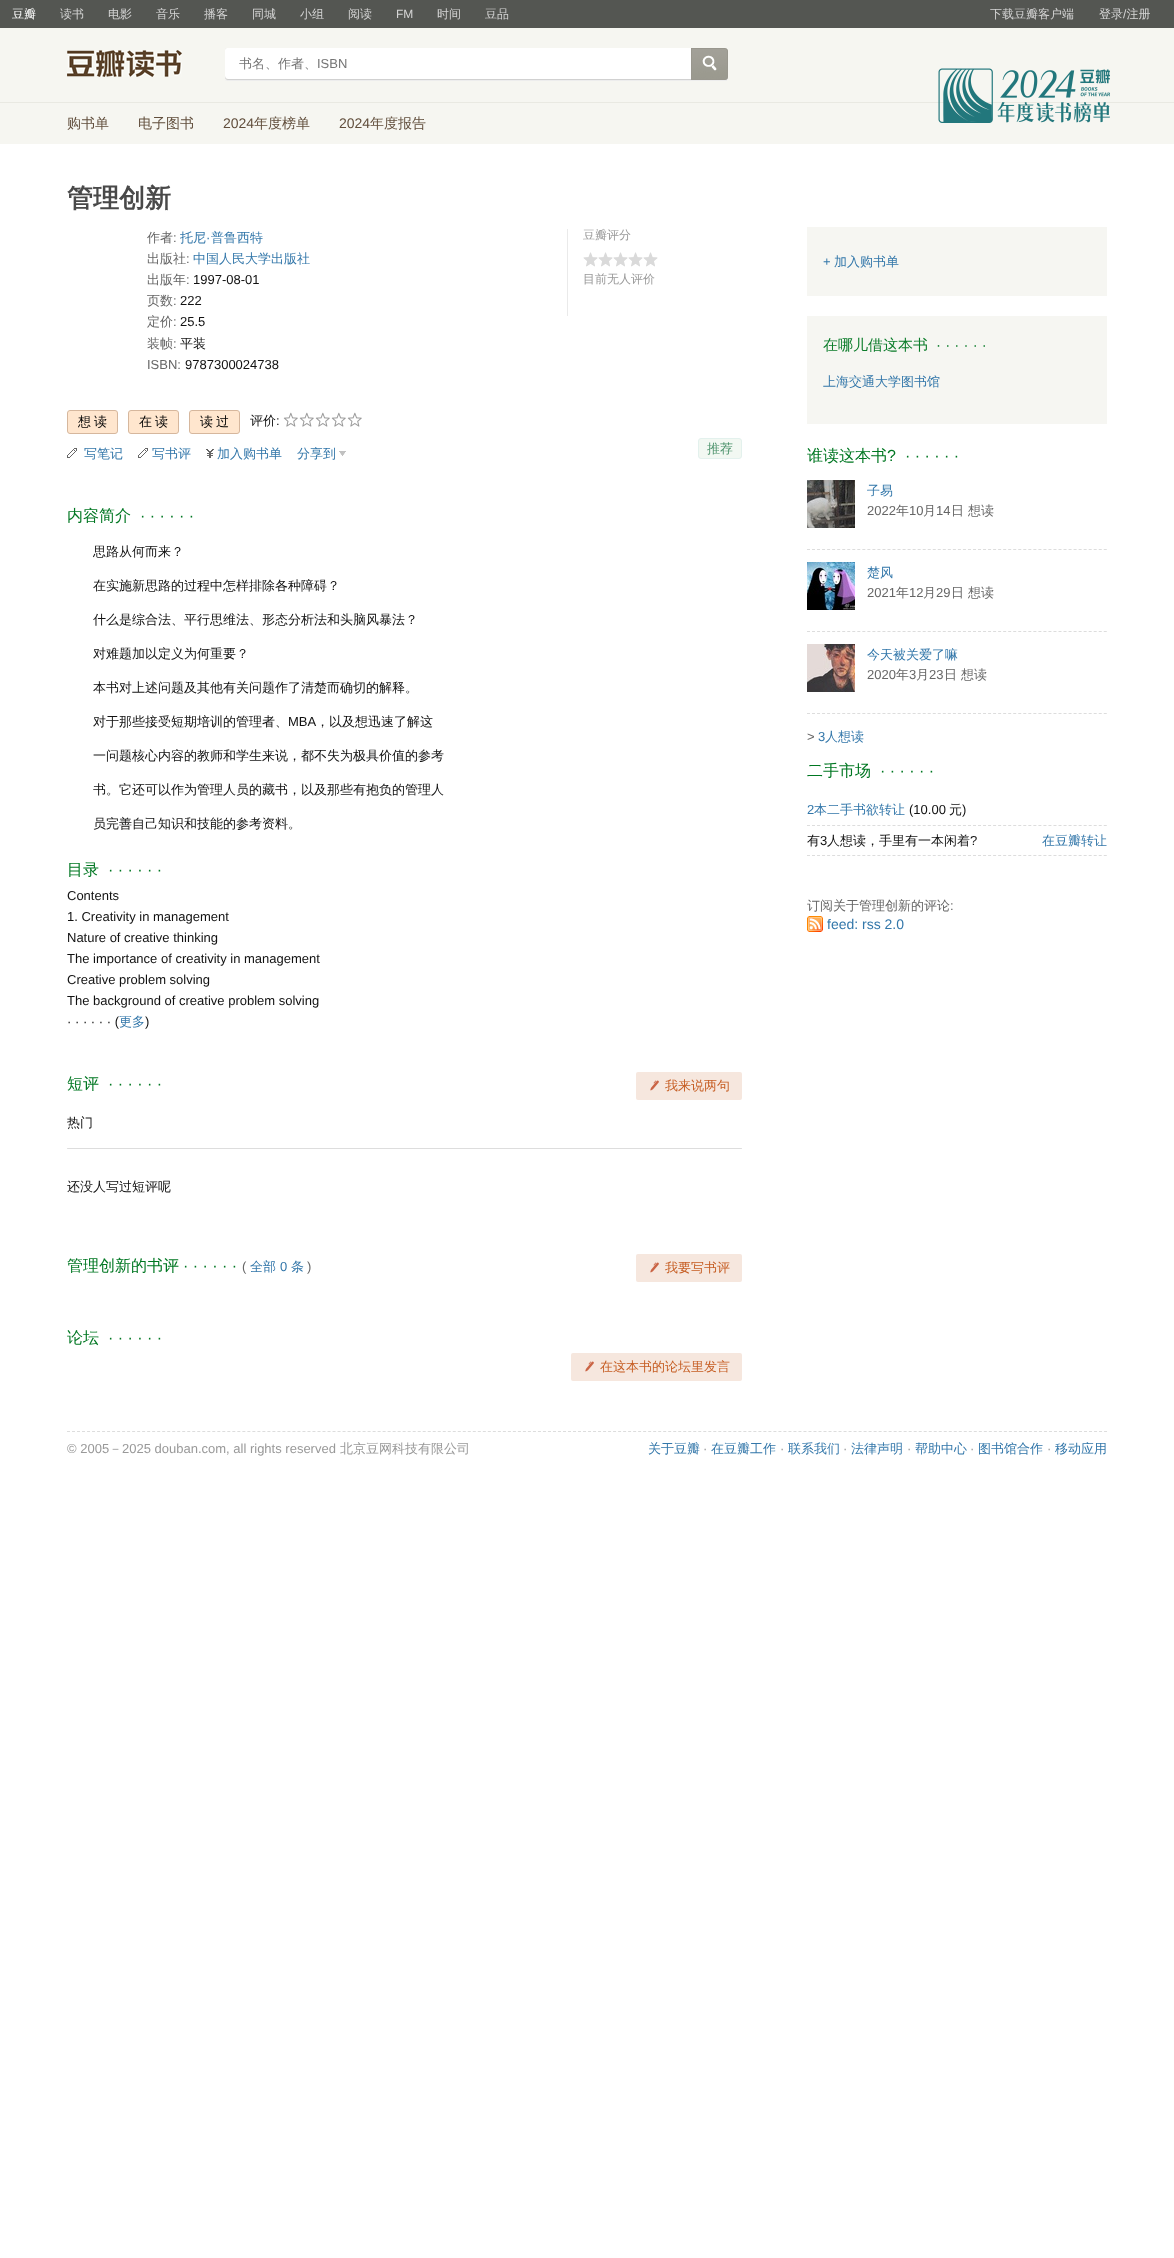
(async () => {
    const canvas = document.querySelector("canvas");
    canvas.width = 1174;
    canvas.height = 2258;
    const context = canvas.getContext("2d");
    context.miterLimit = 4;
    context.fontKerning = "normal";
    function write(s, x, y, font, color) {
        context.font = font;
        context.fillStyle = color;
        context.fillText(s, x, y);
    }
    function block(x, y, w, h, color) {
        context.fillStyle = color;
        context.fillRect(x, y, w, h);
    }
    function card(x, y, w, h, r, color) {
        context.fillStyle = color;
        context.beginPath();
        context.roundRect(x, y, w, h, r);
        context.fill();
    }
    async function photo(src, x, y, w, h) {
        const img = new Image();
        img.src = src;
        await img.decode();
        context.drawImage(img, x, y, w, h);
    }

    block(0, 0, 1174, 2258, "rgb(255, 255, 255)");
    block(0, 0, 1174, 28, "rgb(84, 86, 82)");
    write("豆瓣", 12, 18, "500 12px WenQuanYi Zen Hei", "rgb(255, 255, 255)");
    write("读书", 60, 18, "500 12px WenQuanYi Zen Hei", "rgb(213, 213, 213)");
    write("电影", 108, 18, "500 12px WenQuanYi Zen Hei", "rgb(213, 213, 213)");
    write("音乐", 156, 18, "500 12px WenQuanYi Zen Hei", "rgb(213, 213, 213)");
    write("播客", 204, 18, "500 12px WenQuanYi Zen Hei", "rgb(213, 213, 213)");
    write("同城", 252, 18, "500 12px WenQuanYi Zen Hei", "rgb(213, 213, 213)");
    write("小组", 300, 18, "500 12px WenQuanYi Zen Hei", "rgb(213, 213, 213)");
    write("阅读", 348, 18, "500 12px WenQuanYi Zen Hei", "rgb(213, 213, 213)");
    write("FM", 396, 18, "12px Liberation Sans", "rgb(213, 213, 213)");
    write("时间", 437, 18, "500 12px WenQuanYi Zen Hei", "rgb(213, 213, 213)");
    write("豆品", 485, 18, "500 12px WenQuanYi Zen Hei", "rgb(213, 213, 213)");
    write("下载豆瓣客户端", 990, 18, "500 12px WenQuanYi Zen Hei", "rgb(213, 213, 213)");
    write("登录 注册", 1099, 18, "500 12px WenQuanYi Zen Hei", "rgb(213, 213, 213)");
    write("/", 1123, 18, "12px Liberation Sans", "rgb(213, 213, 213)");
    block(0, 28, 1174, 116, "rgb(246, 246, 241)");
    block(0, 102, 1174, 1, "rgb(233, 233, 226)");
    await photo("media/1.png", 67, 50, 115, 27);
    await photo("media/2.png", 225, 48, 466, 33);
    write("书名、作者、", 239, 68, "500 13px WenQuanYi Zen Hei", "rgb(117, 117, 117)");
    write("ISBN", 317, 68, "13px Liberation Sans", "rgb(117, 117, 117)");
    await photo("media/3.png", 691, 48, 37, 33);
    write("购书单", 67, 128, "500 14px WenQuanYi Zen Hei", "rgb(97, 78, 60)");
    write("电子图书", 138, 128, "500 14px WenQuanYi Zen Hei", "rgb(97, 78, 60)");
    write("2024", 223, 128, "14px Liberation Sans", "rgb(97, 78, 60)");
    write("年度榜单", 254, 128, "500 14px WenQuanYi Zen Hei", "rgb(97, 78, 60)");
    write("2024", 339, 128, "14px Liberation Sans", "rgb(97, 78, 60)");
    write("年度报告", 370, 128, "500 14px WenQuanYi Zen Hei", "rgb(97, 78, 60)");
    await photo("media/4.png", 938, 68, 172, 55);
    write("管理创新", 67, 207, "bold 26px WenQuanYi Zen Hei", "rgb(73, 73, 73)");
    write("作者", 147, 242, "500 13px WenQuanYi Zen Hei", "rgb(102, 102, 102)");
    write(":", 173, 242, "13px Liberation Sans", "rgb(102, 102, 102)");
    write("托尼", 180, 242, "500 13px WenQuanYi Zen Hei", "rgb(51, 119, 170)");
    write("·", 206, 242, "13px Liberation Sans", "rgb(51, 119, 170)");
    write("普鲁西特", 211, 242, "500 13px WenQuanYi Zen Hei", "rgb(51, 119, 170)");
    write("出版社", 147, 263, "500 13px WenQuanYi Zen Hei", "rgb(102, 102, 102)");
    write(":", 186, 263, "13px Liberation Sans", "rgb(102, 102, 102)");
    write("中国人民大学出版社", 193, 263, "500 13px WenQuanYi Zen Hei", "rgb(51, 119, 170)");
    write("出版年", 147, 284, "500 13px WenQuanYi Zen Hei", "rgb(102, 102, 102)");
    write(":", 186, 284, "13px Liberation Sans", "rgb(102, 102, 102)");
    write("1997-08-01", 193, 284, "13px Liberation Sans", "rgb(17, 17, 17)");
    write("页数", 147, 305, "500 13px WenQuanYi Zen Hei", "rgb(102, 102, 102)");
    write(":", 173, 305, "13px Liberation Sans", "rgb(102, 102, 102)");
    write("222", 180, 305, "13px Liberation Sans", "rgb(17, 17, 17)");
    write("定价", 147, 326, "500 13px WenQuanYi Zen Hei", "rgb(102, 102, 102)");
    write(":", 173, 326, "13px Liberation Sans", "rgb(102, 102, 102)");
    write("25.5", 180, 326, "13px Liberation Sans", "rgb(17, 17, 17)");
    write("装帧", 147, 348, "500 13px WenQuanYi Zen Hei", "rgb(102, 102, 102)");
    write(":", 173, 348, "13px Liberation Sans", "rgb(102, 102, 102)");
    write("平装", 180, 348, "500 13px WenQuanYi Zen Hei", "rgb(17, 17, 17)");
    write("ISBN:", 147, 369, "13px Liberation Sans", "rgb(102, 102, 102)");
    write("9787300024738", 185, 369, "13px Liberation Sans", "rgb(17, 17, 17)");
    block(567, 229, 1, 87, "rgb(234, 234, 234)");
    write("豆瓣评分", 583, 239, "500 12px WenQuanYi Zen Hei", "rgb(153, 153, 153)");
    await photo("media/5.png", 583, 252, 75, 15);
    write("目前无人评价", 583, 283, "500 12px WenQuanYi Zen Hei", "rgb(153, 153, 153)");
    context.fillStyle = "rgb(255, 230, 206)";
    context.beginPath();
    context.roundRect(67.5, 410.5, 50, 23, 2.5);
    context.fill();
    context.strokeStyle = "rgb(214, 183, 157)";
    context.stroke();
    context.letterSpacing = "3px";
    write("想读", 78, 426, "500 13px WenQuanYi Zen Hei", "rgb(0, 0, 0)");
    context.fillStyle = "rgb(255, 230, 206)";
    context.beginPath();
    context.roundRect(128.5, 410.5, 50, 23, 2.5);
    context.fill();
    context.stroke();
    write("在读", 139, 426, "500 13px WenQuanYi Zen Hei", "rgb(0, 0, 0)");
    context.fillStyle = "rgb(255, 230, 206)";
    context.beginPath();
    context.roundRect(189.5, 410.5, 50, 23, 2.5);
    context.fill();
    context.stroke();
    write("读过", 200, 426, "500 13px WenQuanYi Zen Hei", "rgb(0, 0, 0)");
    context.letterSpacing = "0px";
    write("评价", 250, 425, "500 13px WenQuanYi Zen Hei", "rgb(17, 17, 17)");
    write(":", 276, 425, "13px Liberation Sans", "rgb(17, 17, 17)");
    await photo("media/6.png", 283, 412, 15, 15);
    await photo("media/6.png", 299, 412, 15, 15);
    await photo("media/6.png", 315, 412, 15, 15);
    await photo("media/6.png", 331, 412, 15, 15);
    await photo("media/6.png", 347, 412, 15, 15);
    await photo("media/7.png", 67, 448, 10, 10);
    write("写笔记", 84, 458, "500 13px WenQuanYi Zen Hei", "rgb(51, 119, 170)");
    await photo("media/7.png", 138, 448, 10, 10);
    write("写书评", 152, 458, "500 13px WenQuanYi Zen Hei", "rgb(51, 119, 170)");
    await photo("media/8.png", 206, 449, 8, 9);
    write("加入购书单", 217, 458, "500 13px WenQuanYi Zen Hei", "rgb(51, 119, 170)");
    write("分享到", 297, 458, "500 13px WenQuanYi Zen Hei", "rgb(51, 119, 170)");
    await photo("media/9.png", 339, 451, 7, 5);
    context.fillStyle = "rgb(242, 248, 242)";
    context.beginPath();
    context.roundRect(698.5, 438.5, 43, 20, 2.5);
    context.fill();
    context.strokeStyle = "rgb(227, 241, 237)";
    context.stroke();
    write("推荐", 707, 453, "500 13px WenQuanYi Zen Hei", "rgb(79, 148, 110)");
    write("内容简介", 67, 521, "500 16px WenQuanYi Zen Hei", "rgb(0, 119, 34)");
    write("· · · · · ·", 140, 521, "16px Liberation Sans", "rgb(0, 119, 34)");
    write("思路从何而来？", 93, 556, "500 13px WenQuanYi Zen Hei", "rgb(17, 17, 17)");
    write("在实施新思路的过程中怎样排除各种障碍？", 93, 590, "500 13px WenQuanYi Zen Hei", "rgb(17, 17, 17)");
    write("什么是综合法、平行思维法、形态分析法和头脑风暴法？", 93, 624, "500 13px WenQuanYi Zen Hei", "rgb(17, 17, 17)");
    write("对难题加以定义为何重要？", 93, 658, "500 13px WenQuanYi Zen Hei", "rgb(17, 17, 17)");
    write("本书对上述问题及其他有关问题作了清楚而确切的解释。", 93, 692, "500 13px WenQuanYi Zen Hei", "rgb(17, 17, 17)");
    write("对于那些接受短期培训的管理者、", 93, 726, "500 13px WenQuanYi Zen Hei", "rgb(17, 17, 17)");
    write("MBA", 288, 726, "13px Liberation Sans", "rgb(17, 17, 17)");
    write("，以及想迅速了解这", 316, 726, "500 13px WenQuanYi Zen Hei", "rgb(17, 17, 17)");
    write("一问题核心内容的教师和学生来说，都不失为极具价值的参考", 93, 760, "500 13px WenQuanYi Zen Hei", "rgb(17, 17, 17)");
    write("书。它还可以作为管理人员的藏书，以及那些有抱负的管理人", 93, 794, "500 13px WenQuanYi Zen Hei", "rgb(17, 17, 17)");
    write("员完善自己知识和技能的参考资料。", 93, 828, "500 13px WenQuanYi Zen Hei", "rgb(17, 17, 17)");
    write("目录", 67, 875, "500 16px WenQuanYi Zen Hei", "rgb(0, 119, 34)");
    write("· · · · · ·", 108, 875, "16px Liberation Sans", "rgb(0, 119, 34)");
    write("Contents", 67, 900, "13px Liberation Sans", "rgb(17, 17, 17)");
    write("1. Creativity in management", 67, 921, "13px Liberation Sans", "rgb(17, 17, 17)");
    write("Nature of creative thinking", 67, 942, "13px Liberation Sans", "rgb(17, 17, 17)");
    write("The importance of creativity in management", 67, 963, "13px Liberation Sans", "rgb(17, 17, 17)");
    write("Creative problem solving", 67, 984, "13px Liberation Sans", "rgb(17, 17, 17)");
    write("The background of creative problem solving", 67, 1005, "13px Liberation Sans", "rgb(17, 17, 17)");
    write("· · · · · · (", 67, 1026, "13px Liberation Sans", "rgb(17, 17, 17)");
    write("更多", 119, 1026, "500 13px WenQuanYi Zen Hei", "rgb(51, 119, 170)");
    write(")", 145, 1026, "13px Liberation Sans", "rgb(17, 17, 17)");
    write("短评", 67, 1089, "500 16px WenQuanYi Zen Hei", "rgb(0, 119, 34)");
    write("· · · · · ·", 108, 1089, "16px Liberation Sans", "rgb(0, 119, 34)");
    card(636, 1072, 106, 28, 2, "rgb(246, 231, 222)");
    await photo("media/10.png", 650, 1080, 9, 11);
    write("我来说两句", 665, 1090, "500 13px WenQuanYi Zen Hei", "rgb(198, 94, 36)");
    write("热门", 67, 1127, "500 13px WenQuanYi Zen Hei", "rgb(17, 17, 17)");
    card(67, 1148, 675, 1, 0.5, "rgb(221, 221, 221)");
    write("还没人写过短评呢", 67, 1191, "500 13px WenQuanYi Zen Hei", "rgb(17, 17, 17)");
    write("管理创新的书评", 67, 1271, "500 16px WenQuanYi Zen Hei", "rgb(0, 119, 34)");
    write("· · · · · ·", 183, 1271, "16px Liberation Sans", "rgb(0, 119, 34)");
    write("(", 242, 1271, "13px Liberation Sans", "rgb(102, 102, 102)");
    write("全部", 250, 1271, "500 13px WenQuanYi Zen Hei", "rgb(51, 119, 170)");
    write("0", 280, 1271, "13px Liberation Sans", "rgb(51, 119, 170)");
    write("条", 291, 1271, "500 13px WenQuanYi Zen Hei", "rgb(51, 119, 170)");
    write(")", 307, 1271, "13px Liberation Sans", "rgb(102, 102, 102)");
    card(636, 1254, 106, 28, 2, "rgb(246, 231, 222)");
    await photo("media/10.png", 650, 1262, 9, 11);
    write("我要写书评", 665, 1272, "500 13px WenQuanYi Zen Hei", "rgb(198, 94, 36)");
    write("论坛", 67, 1343, "500 16px WenQuanYi Zen Hei", "rgb(0, 119, 34)");
    write("· · · · · ·", 108, 1343, "16px Liberation Sans", "rgb(0, 119, 34)");
    card(571, 1353, 171, 28, 2, "rgb(246, 231, 222)");
    await photo("media/10.png", 585, 1361, 9, 11);
    write("在这本书的论坛里发言", 600, 1371, "500 13px WenQuanYi Zen Hei", "rgb(198, 94, 36)");
    block(807, 227, 300, 69, "rgb(246, 246, 242)");
    write("+", 823, 266, "13px Liberation Sans", "rgb(51, 119, 170)");
    write("加入购书单", 834, 266, "500 13px WenQuanYi Zen Hei", "rgb(51, 119, 170)");
    block(807, 316, 300, 108, "rgb(246, 246, 242)");
    write("在哪儿借这本书", 823, 350, "500 15px WenQuanYi Zen Hei", "rgb(11, 124, 42)");
    write("· · · · · ·", 936, 350, "15px Liberation Sans", "rgb(11, 124, 42)");
    write("上海交通大学图书馆", 823, 386, "500 13px WenQuanYi Zen Hei", "rgb(51, 119, 170)");
    write("谁读这本书", 807, 461, "500 16px WenQuanYi Zen Hei", "rgb(0, 119, 34)");
    write("?", 887, 461, "16px Liberation Sans", "rgb(0, 119, 34)");
    write("· · · · · ·", 905, 461, "16px Liberation Sans", "rgb(0, 119, 34)");
    await photo("media/11.png", 807, 480, 48, 48);
    write("子易", 867, 495, "500 13px WenQuanYi Zen Hei", "rgb(51, 119, 170)");
    write("2022", 867, 515, "13px Liberation Sans", "rgb(102, 102, 102)");
    write("年", 896, 515, "500 13px WenQuanYi Zen Hei", "rgb(102, 102, 102)");
    write("10", 909, 515, "13px Liberation Sans", "rgb(102, 102, 102)");
    write("月", 923, 515, "500 13px WenQuanYi Zen Hei", "rgb(102, 102, 102)");
    write("14", 936, 515, "13px Liberation Sans", "rgb(102, 102, 102)");
    write("日 想读", 951, 515, "500 13px WenQuanYi Zen Hei", "rgb(102, 102, 102)");
    context.beginPath();
    context.moveTo(807, 549.5);
    context.lineTo(1107, 549.5);
    context.strokeStyle = "rgb(221, 221, 221)";
    context.setLineDash([3, 2.03]);
    context.stroke();
    await photo("media/12.png", 807, 562, 48, 48);
    write("楚风", 867, 577, "500 13px WenQuanYi Zen Hei", "rgb(51, 119, 170)");
    write("2021", 867, 597, "13px Liberation Sans", "rgb(102, 102, 102)");
    write("年", 896, 597, "500 13px WenQuanYi Zen Hei", "rgb(102, 102, 102)");
    write("12", 909, 597, "13px Liberation Sans", "rgb(102, 102, 102)");
    write("月", 923, 597, "500 13px WenQuanYi Zen Hei", "rgb(102, 102, 102)");
    write("29", 936, 597, "13px Liberation Sans", "rgb(102, 102, 102)");
    write("日 想读", 951, 597, "500 13px WenQuanYi Zen Hei", "rgb(102, 102, 102)");
    context.beginPath();
    context.moveTo(807, 631.5);
    context.lineTo(1107, 631.5);
    context.stroke();
    await photo("media/13.png", 807, 644, 48, 48);
    write("今天被关爱了嘛", 867, 659, "500 13px WenQuanYi Zen Hei", "rgb(51, 119, 170)");
    write("2020", 867, 679, "13px Liberation Sans", "rgb(102, 102, 102)");
    write("年", 896, 679, "500 13px WenQuanYi Zen Hei", "rgb(102, 102, 102)");
    write("3", 909, 679, "13px Liberation Sans", "rgb(102, 102, 102)");
    write("月", 916, 679, "500 13px WenQuanYi Zen Hei", "rgb(102, 102, 102)");
    write("23", 929, 679, "13px Liberation Sans", "rgb(102, 102, 102)");
    write("日 想读", 944, 679, "500 13px WenQuanYi Zen Hei", "rgb(102, 102, 102)");
    context.beginPath();
    context.moveTo(807, 713.5);
    context.lineTo(1107, 713.5);
    context.stroke();
    write(">", 807, 741, "13px Liberation Sans", "rgb(102, 102, 102)");
    write("3", 818, 741, "13px Liberation Sans", "rgb(51, 119, 170)");
    write("人想读", 825, 741, "500 13px WenQuanYi Zen Hei", "rgb(51, 119, 170)");
    write("二手市场", 807, 776, "500 16px WenQuanYi Zen Hei", "rgb(0, 119, 34)");
    write("· · · · · ·", 880, 776, "16px Liberation Sans", "rgb(0, 119, 34)");
    context.beginPath();
    context.moveTo(807, 825.5);
    context.lineTo(1107, 825.5);
    context.stroke();
    write("2", 807, 814, "13px Liberation Sans", "rgb(51, 119, 170)");
    write("本二手书欲转让", 814, 814, "500 13px WenQuanYi Zen Hei", "rgb(51, 119, 170)");
    write("(10.00", 909, 814, "13px Liberation Sans", "rgb(17, 17, 17)");
    write("元", 949, 814, "500 13px WenQuanYi Zen Hei", "rgb(17, 17, 17)");
    write(")", 962, 814, "13px Liberation Sans", "rgb(17, 17, 17)");
    context.beginPath();
    context.moveTo(807, 855.5);
    context.lineTo(1107, 855.5);
    context.stroke();
    write("有", 807, 845, "500 13px WenQuanYi Zen Hei", "rgb(17, 17, 17)");
    write("3", 820, 845, "13px Liberation Sans", "rgb(17, 17, 17)");
    write("人想读，手里有一本闲着", 827, 845, "500 13px WenQuanYi Zen Hei", "rgb(17, 17, 17)");
    write("?", 970, 845, "13px Liberation Sans", "rgb(17, 17, 17)");
    write("在豆瓣转让", 1042, 845, "500 13px WenQuanYi Zen Hei", "rgb(51, 119, 170)");
    write("订阅关于管理创新的评论", 807, 910, "500 13px WenQuanYi Zen Hei", "rgb(102, 102, 102)");
    write(":", 950, 910, "13px Liberation Sans", "rgb(102, 102, 102)");
    await photo("media/14.png", 807, 916, 16, 16);
    write("feed: rss 2.0", 827, 929, "14px Liberation Sans", "rgb(51, 119, 170)");
    context.beginPath();
    context.moveTo(67, 1431.5);
    context.lineTo(1107, 1431.5);
    context.setLineDash([3, 2.01]);
    context.stroke();
    write("© 2005", 67, 1453, "13px Liberation Sans", "rgb(153, 153, 153)");
    write("－", 109, 1453, "500 13px WenQuanYi Zen Hei", "rgb(153, 153, 153)");
    write("2025 douban.com, all rights reserved", 122, 1453, "13px Liberation Sans", "rgb(153, 153, 153)");
    write("北京豆网科技有限公司", 340, 1453, "500 13px WenQuanYi Zen Hei", "rgb(153, 153, 153)");
    write("关于豆瓣", 648, 1453, "500 13px WenQuanYi Zen Hei", "rgb(51, 119, 170)");
    write("·", 703, 1453, "13px Liberation Sans", "rgb(153, 153, 153)");
    write("在豆瓣工作", 711, 1453, "500 13px WenQuanYi Zen Hei", "rgb(51, 119, 170)");
    write("·", 780, 1453, "13px Liberation Sans", "rgb(153, 153, 153)");
    write("联系我们", 788, 1453, "500 13px WenQuanYi Zen Hei", "rgb(51, 119, 170)");
    write("·", 843, 1453, "13px Liberation Sans", "rgb(153, 153, 153)");
    write("法律声明", 851, 1453, "500 13px WenQuanYi Zen Hei", "rgb(51, 119, 170)");
    write("·", 907, 1453, "13px Liberation Sans", "rgb(153, 153, 153)");
    write("帮助中心", 915, 1453, "500 13px WenQuanYi Zen Hei", "rgb(51, 119, 170)");
    write("·", 970, 1453, "13px Liberation Sans", "rgb(153, 153, 153)");
    write("图书馆合作", 978, 1453, "500 13px WenQuanYi Zen Hei", "rgb(51, 119, 170)");
    write("·", 1047, 1453, "13px Liberation Sans", "rgb(153, 153, 153)");
    write("移动应用", 1055, 1453, "500 13px WenQuanYi Zen Hei", "rgb(51, 119, 170)");
})();
